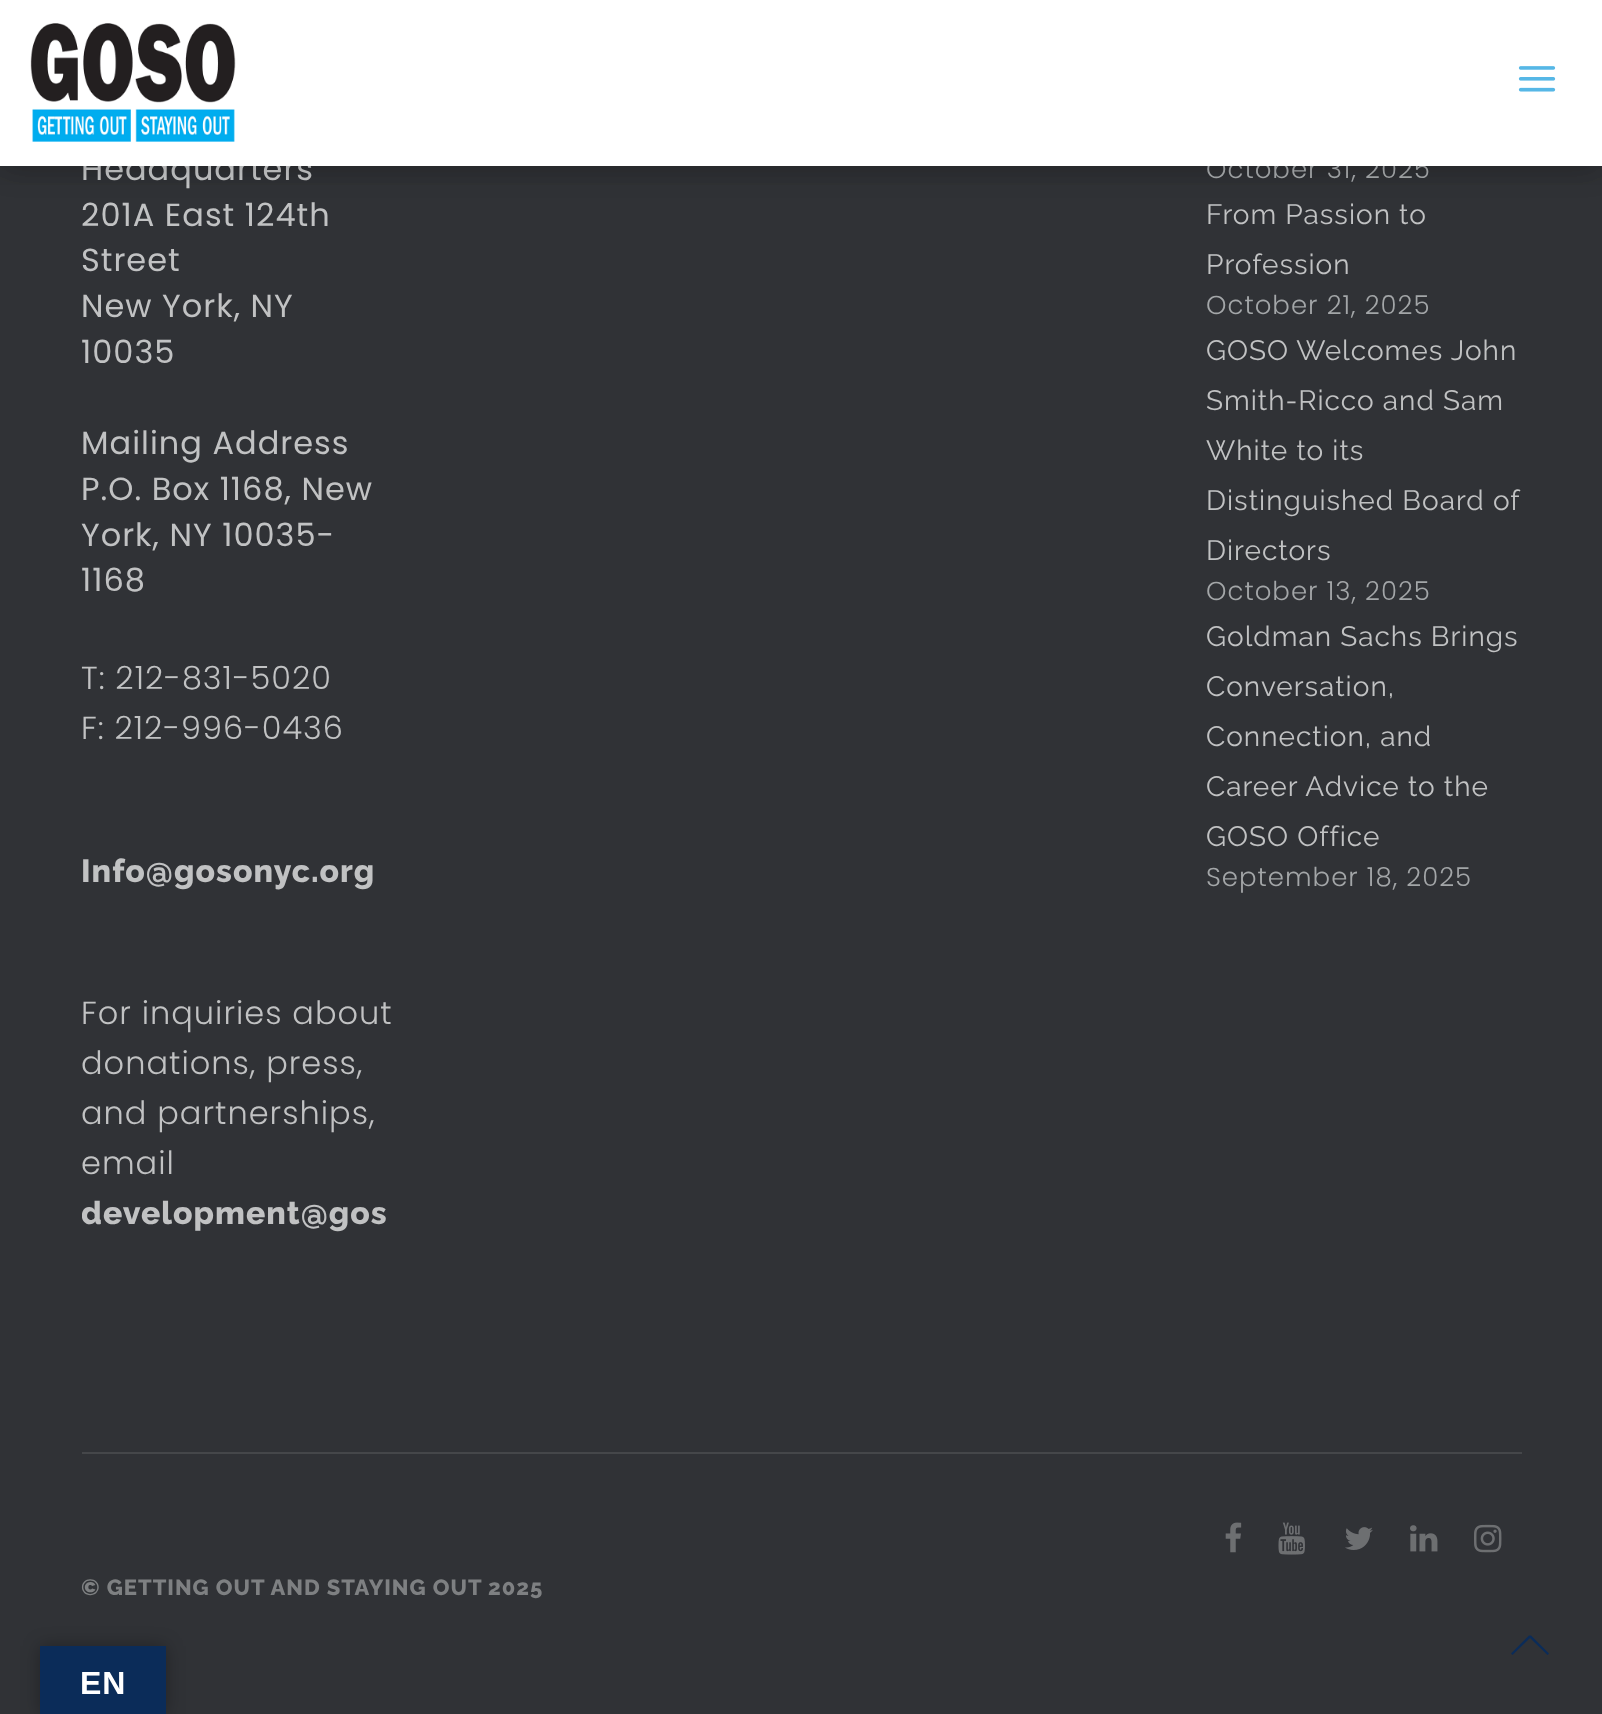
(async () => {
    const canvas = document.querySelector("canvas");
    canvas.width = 1602;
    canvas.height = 1714;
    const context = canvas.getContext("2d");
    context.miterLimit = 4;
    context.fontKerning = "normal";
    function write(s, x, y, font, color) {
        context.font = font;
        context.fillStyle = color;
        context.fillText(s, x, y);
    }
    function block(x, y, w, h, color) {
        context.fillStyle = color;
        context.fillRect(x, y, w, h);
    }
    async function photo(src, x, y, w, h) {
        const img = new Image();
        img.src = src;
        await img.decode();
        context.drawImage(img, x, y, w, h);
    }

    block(0, 0, 1602, 1714, "rgb(48, 50, 54)");
    context.fillStyle = "rgba(0, 0, 0, 0.15)";
    context.filter = "blur(15px)";
    context.beginPath();
    context.rect(0, 2, 1602, 166);
    context.fill();
    context.filter = "none";
    context.letterSpacing = "1px";
    write("Headquarters", 81, 180, "32px Poppins", "rgb(193, 194, 195)");
    write("October 31, 2025", 1206, 178, "300 26px Poppins", "rgb(163, 166, 168)");
    block(0, 0, 1602, 166, "rgb(255, 255, 255)");
    context.save();
    context.beginPath();
    context.rect(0, 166, 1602, 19);
    context.clip();
    context.fillStyle = "rgba(0, 0, 0, 0.15)";
    context.filter = "blur(15px)";
    context.beginPath();
    context.rect(0, 2, 1602, 166);
    context.fill();
    context.filter = "none";
    context.restore();
    await photo("media/1.png", 30, 23, 206, 119);
    await photo("media/2.png", 1518, 66, 38, 26);
    write("201A East 124th", 81, 226, "32px Poppins", "rgb(193, 194, 195)");
    write("Street", 81, 271, "32px Poppins", "rgb(193, 194, 195)");
    write("New York, NY", 81, 317, "32px Poppins", "rgb(193, 194, 195)");
    write("10035", 81, 363, "32px Poppins", "rgb(193, 194, 195)");
    write("Mailing Address", 81, 454, "32px Poppins", "rgb(193, 194, 195)");
    write("P.O. Box 1168, New", 81, 500, "32px Poppins", "rgb(193, 194, 195)");
    write("York, NY 10035-", 81, 546, "32px Poppins", "rgb(193, 194, 195)");
    write("1168", 81, 591, "32px Poppins", "rgb(193, 194, 195)");
    write("T: 212-831-5020", 81, 689, "300 32px Poppins", "rgb(193, 194, 195)");
    write("F: 212-996-0436", 81, 739, "300 32px Poppins", "rgb(193, 194, 195)");
    write("Info@gosonyc.org", 81, 882, "800 32px Raleway", "rgb(193, 194, 195)");
    write("For inquiries about", 81, 1024, "300 32px Poppins", "rgb(193, 194, 195)");
    write("donations, press,", 81, 1074, "300 32px Poppins", "rgb(193, 194, 195)");
    write("and partnerships,", 81, 1124, "300 32px Poppins", "rgb(193, 194, 195)");
    write("email", 81, 1174, "300 32px Poppins", "rgb(193, 194, 195)");
    context.save();
    context.beginPath();
    context.rect(82, 0, 314, 1332);
    context.clip();
    write("development@gos", 81, 1224, "800 32px Raleway", "rgb(193, 194, 195)");
    context.restore();
    write("From Passion to", 1206, 224, "28px Raleway", "rgb(193, 194, 195)");
    write("Profession", 1206, 274, "28px Raleway", "rgb(193, 194, 195)");
    write("October 21, 2025", 1206, 314, "300 26px Poppins", "rgb(163, 166, 168)");
    write("GOSO Welcomes John", 1206, 360, "28px Raleway", "rgb(193, 194, 195)");
    write("Smith-Ricco and Sam", 1206, 410, "28px Raleway", "rgb(193, 194, 195)");
    write("White to its", 1206, 460, "28px Raleway", "rgb(193, 194, 195)");
    write("Distinguished Board of", 1206, 510, "28px Raleway", "rgb(193, 194, 195)");
    write("Directors", 1206, 560, "28px Raleway", "rgb(193, 194, 195)");
    write("October 13, 2025", 1206, 600, "300 26px Poppins", "rgb(163, 166, 168)");
    write("Goldman Sachs Brings", 1206, 646, "28px Raleway", "rgb(193, 194, 195)");
    write("Conversation,", 1206, 696, "28px Raleway", "rgb(193, 194, 195)");
    write("Connection, and", 1206, 746, "28px Raleway", "rgb(193, 194, 195)");
    write("Career Advice to the", 1206, 796, "28px Raleway", "rgb(193, 194, 195)");
    write("GOSO Office", 1206, 846, "28px Raleway", "rgb(193, 194, 195)");
    write("September 18, 2025", 1206, 886, "300 26px Poppins", "rgb(163, 166, 168)");
    block(82, 1452, 1440, 2, "rgb(69, 71, 74)");
    await photo("media/3.png", 1225, 1522, 17, 31);
    await photo("media/4.png", 1278, 1522, 27, 33);
    await photo("media/5.png", 1345, 1527, 28, 23);
    await photo("media/6.png", 1410, 1525, 28, 27);
    await photo("media/7.png", 1474, 1524, 28, 29);
    write("© GETTING OUT AND STAYING OUT 2025", 81, 1595, "800 22px Raleway", "rgb(126, 128, 130)");
    context.fillStyle = "rgb(11, 44, 89)";
    context.beginPath();
    context.moveTo(1549, 1653.5);
    context.lineTo(1547.5, 1655);
    context.lineTo(1530, 1638);
    context.lineTo(1512.5, 1655);
    context.lineTo(1511, 1653.5);
    context.lineTo(1529, 1635.5);
    context.lineTo(1531, 1635.5);
    context.closePath();
    context.fill();
    context.fillStyle = "rgba(0, 0, 0, 0.3)";
    context.filter = "blur(9px)";
    context.beginPath();
    context.rect(40, 1646, 126, 68);
    context.fill();
    context.filter = "none";
    block(40, 1646, 126, 68, "rgb(11, 44, 89)");
    write("EN", 80, 1694, "bold 32px Liberation Sans", "rgb(255, 255, 255)");
})();
